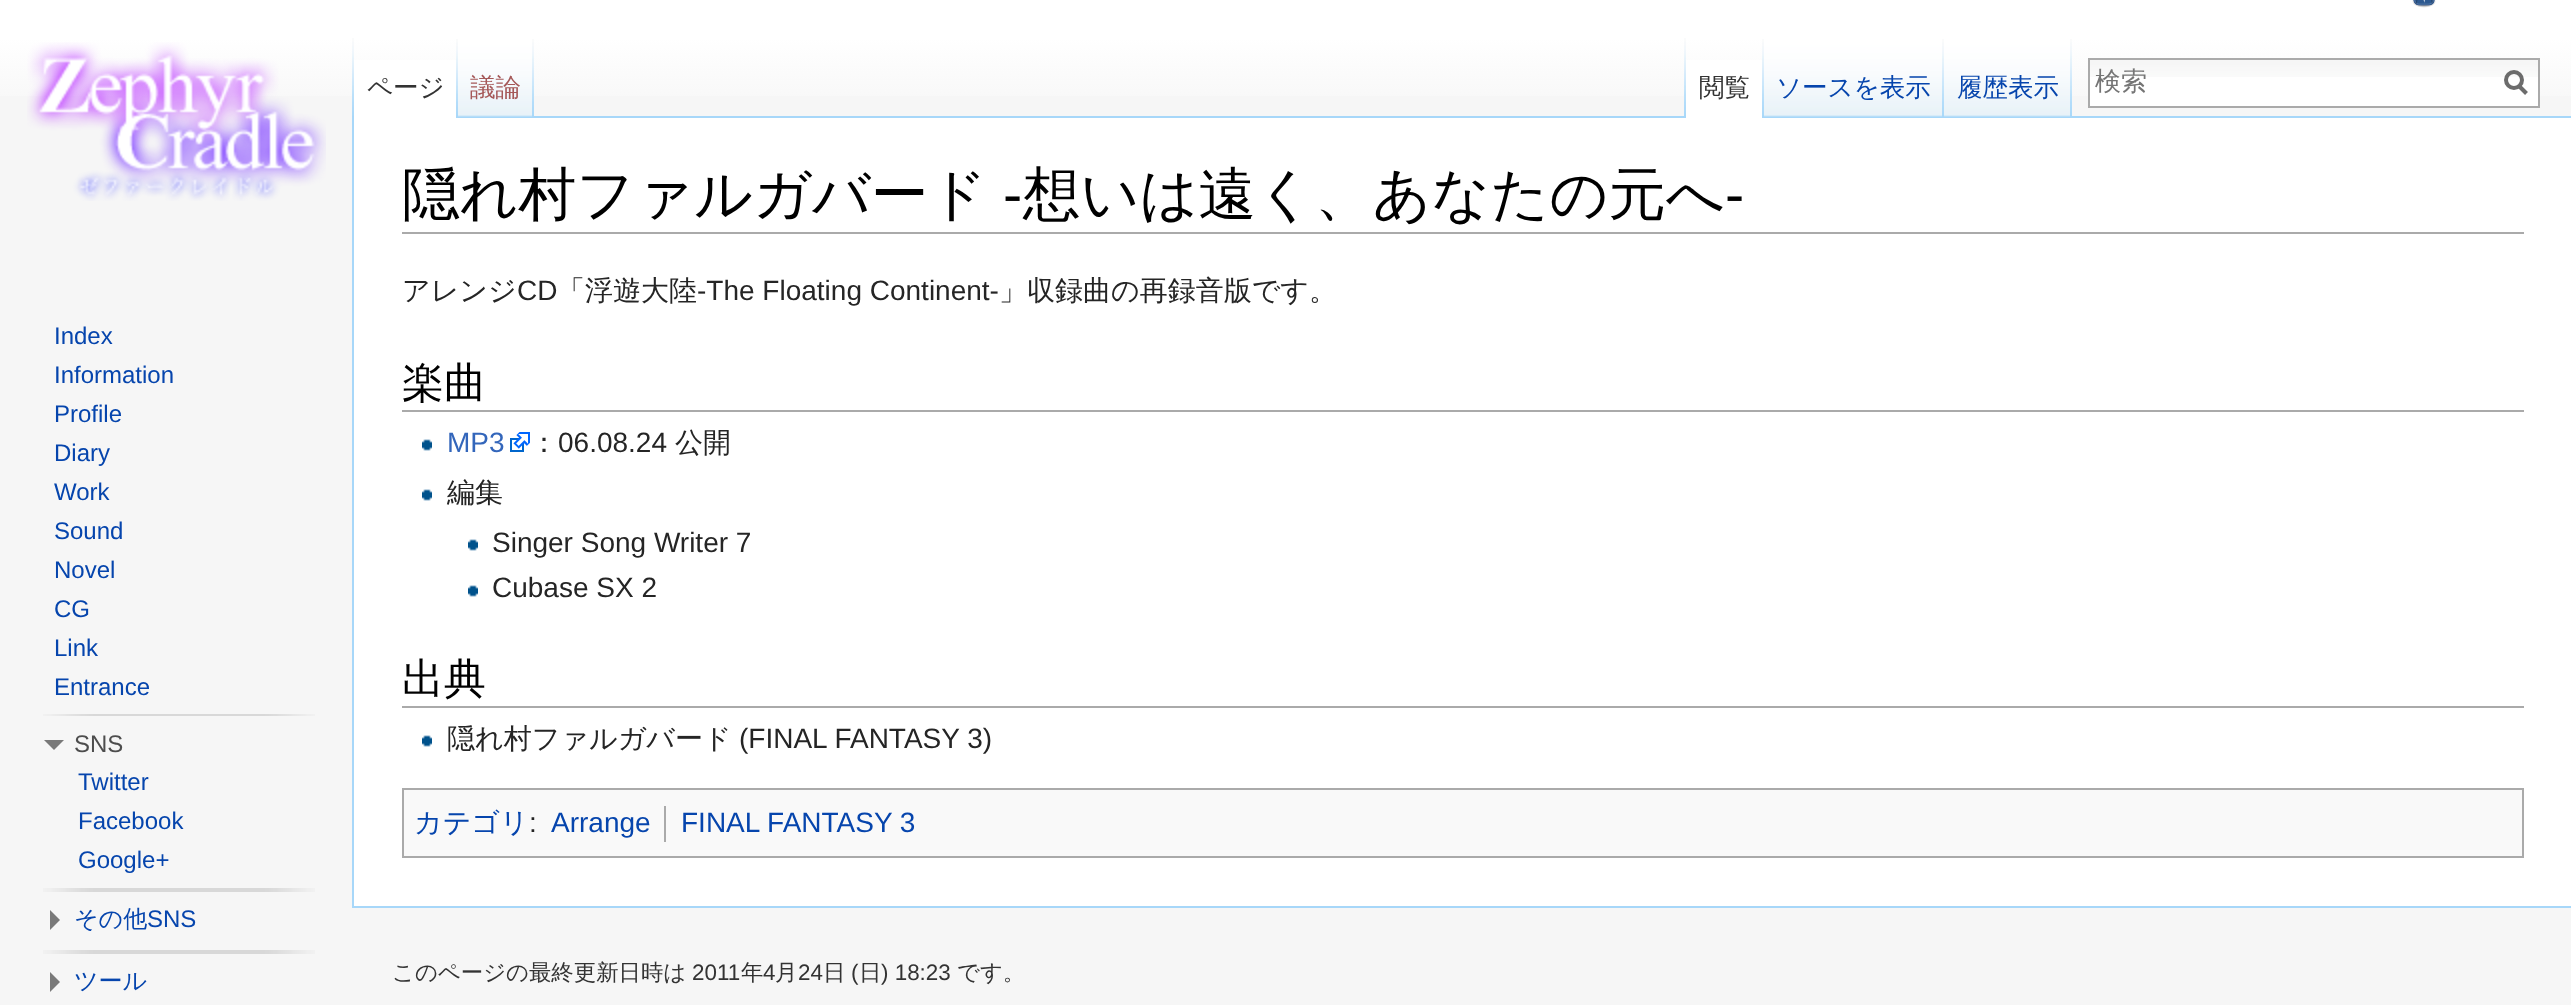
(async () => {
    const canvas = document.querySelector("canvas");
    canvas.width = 2571;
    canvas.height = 1005;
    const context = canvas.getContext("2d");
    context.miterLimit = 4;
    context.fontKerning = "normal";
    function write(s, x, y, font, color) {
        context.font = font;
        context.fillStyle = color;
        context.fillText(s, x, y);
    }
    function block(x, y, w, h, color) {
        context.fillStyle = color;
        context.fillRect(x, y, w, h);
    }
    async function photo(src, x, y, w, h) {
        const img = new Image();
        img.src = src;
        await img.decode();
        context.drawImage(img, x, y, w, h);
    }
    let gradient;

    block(0, 0, 2571, 1005, "rgb(246, 246, 246)");
    gradient = context.createLinearGradient(1286, -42, 1286, 118);
    gradient.addColorStop(0.5, "rgb(255, 255, 255)");
    gradient.addColorStop(1, "rgb(246, 246, 246)");
    context.fillStyle = gradient;
    context.fillRect(0, 0, 2571, 96);
    await photo("media/1.png", 2412, 0, 24, 8);
    await photo("media/2.png", 352, 38, 2, 78);
    block(354, 60, 104, 58, "rgb(255, 255, 255)");
    await photo("media/3.png", 456, 39, 2, 79);
    write("ページ", 367, 96, "500 25.5px WenQuanYi Zen Hei", "rgb(51, 51, 51)");
    await photo("media/4.png", 458, 38, 76, 80);
    await photo("media/5.png", 532, 39, 2, 78);
    write("議論", 470, 96, "500 25.5px WenQuanYi Zen Hei", "rgb(165, 88, 88)");
    await photo("media/2.png", 1684, 38, 2, 78);
    block(534, 116, 2037, 2, "rgb(167, 215, 249)");
    block(1686, 60, 78, 58, "rgb(255, 255, 255)");
    await photo("media/3.png", 1762, 39, 2, 79);
    write("閲覧", 1699, 96, "500 25.5px WenQuanYi Zen Hei", "rgb(51, 51, 51)");
    await photo("media/6.png", 1764, 38, 180, 80);
    await photo("media/5.png", 1942, 39, 2, 78);
    write("ソースを表示", 1776, 96, "500 25.5px WenQuanYi Zen Hei", "rgb(6, 69, 173)");
    await photo("media/7.png", 1944, 38, 128, 80);
    await photo("media/5.png", 2070, 39, 2, 78);
    write("履歴表示", 1957, 96, "500 25.5px WenQuanYi Zen Hei", "rgb(6, 69, 173)");
    block(2090, 77, 448, 29, "rgb(255, 255, 255)");
    await photo("media/8.png", 2090, 60, 448, 17);
    context.strokeStyle = "rgb(170, 170, 170)";
    context.lineWidth = 2;
    context.strokeRect(2089, 59, 450, 48);
    write("検索", 2095, 90, "500 26px WenQuanYi Zen Hei", "rgb(117, 117, 117)");
    context.beginPath();
    context.moveTo(2526.5, 93.5);
    context.lineTo(2518.5, 85.5);
    context.strokeStyle = "rgb(108, 108, 108)";
    context.lineWidth = 4;
    context.stroke();
    context.beginPath();
    context.arc(2514, 80, 8, 0, Math.PI * 2);
    context.stroke();
    await photo("media/9.png", 27, 42, 299, 159);
    write("Index", 54, 344, "24px Liberation Sans", "rgb(6, 69, 173)");
    write("Information", 54, 383, "24px Liberation Sans", "rgb(6, 69, 173)");
    write("Profile", 54, 422, "24px Liberation Sans", "rgb(6, 69, 173)");
    write("Diary", 54, 461, "24px Liberation Sans", "rgb(6, 69, 173)");
    write("Work", 54, 500, "24px Liberation Sans", "rgb(6, 69, 173)");
    write("Sound", 54, 539, "24px Liberation Sans", "rgb(6, 69, 173)");
    write("Novel", 54, 578, "24px Liberation Sans", "rgb(6, 69, 173)");
    write("CG", 54, 617, "24px Liberation Sans", "rgb(6, 69, 173)");
    write("Link", 54, 656, "24px Liberation Sans", "rgb(6, 69, 173)");
    write("Entrance", 54, 695, "24px Liberation Sans", "rgb(6, 69, 173)");
    await photo("media/10.png", 43, 714, 272, 2);
    context.fillStyle = "rgb(121, 121, 121)";
    context.beginPath();
    context.moveTo(64, 740);
    context.lineTo(54, 750);
    context.lineTo(44, 740);
    context.closePath();
    context.fill();
    write("SNS", 74, 752, "24px Liberation Sans", "rgb(77, 77, 77)");
    write("Twitter", 78, 790, "24px Liberation Sans", "rgb(6, 69, 173)");
    write("Facebook", 78, 829, "24px Liberation Sans", "rgb(6, 69, 173)");
    write("Google+", 78, 868, "24px Liberation Sans", "rgb(6, 69, 173)");
    await photo("media/11.png", 43, 888, 272, 4);
    context.fillStyle = "rgb(121, 121, 121)";
    context.beginPath();
    context.moveTo(50, 910);
    context.lineTo(60, 920);
    context.lineTo(50, 930);
    context.closePath();
    context.fill();
    write("その他", 74, 927, "500 24px WenQuanYi Zen Hei", "rgb(6, 69, 173)");
    write("SNS", 147, 927, "24px Liberation Sans", "rgb(6, 69, 173)");
    await photo("media/11.png", 43, 950, 272, 4);
    context.fillStyle = "rgb(121, 121, 121)";
    context.beginPath();
    context.moveTo(50, 972);
    context.lineTo(60, 982);
    context.lineTo(50, 992);
    context.closePath();
    context.fill();
    write("ツール", 74, 989, "500 24px WenQuanYi Zen Hei", "rgb(6, 69, 173)");
    block(354, 118, 2217, 788, "rgb(255, 255, 255)");
    block(352, 906, 2219, 2, "rgb(167, 215, 249)");
    block(352, 116, 2, 792, "rgb(167, 215, 249)");
    block(402, 232, 2122, 2, "rgb(170, 170, 170)");
    write("隠れ村ファルガバード", 402, 214, "500 57.6px WenQuanYi Zen Hei", "rgb(0, 0, 0)");
    write("-", 1003, 214, "57.6px Liberation Sans", "rgb(0, 0, 0)");
    write("想いは遠く、あなたの元へ", 1023, 214, "500 57.6px WenQuanYi Zen Hei", "rgb(0, 0, 0)");
    write("-", 1725, 214, "57.6px Liberation Sans", "rgb(0, 0, 0)");
    write("アレンジ", 402, 300, "500 28px WenQuanYi Zen Hei", "rgb(37, 37, 37)");
    write("CD", 517, 300, "28px Liberation Sans", "rgb(37, 37, 37)");
    write("「浮遊大陸", 557, 300, "500 28px WenQuanYi Zen Hei", "rgb(37, 37, 37)");
    write("-The Floating Continent-", 697, 300, "28px Liberation Sans", "rgb(37, 37, 37)");
    write("」収録曲の再録音版です。", 999, 300, "500 28px WenQuanYi Zen Hei", "rgb(37, 37, 37)");
    block(402, 410, 2122, 2, "rgb(170, 170, 170)");
    write("楽曲", 402, 397, "500 42px WenQuanYi Zen Hei", "rgb(0, 0, 0)");
    await photo("media/12.png", 422, 439, 10, 12);
    write("MP3", 447, 452, "28px Liberation Sans", "rgb(51, 102, 187)");
    await photo("media/13.png", 510, 432, 20, 20);
    write("：", 530, 452, "500 28px WenQuanYi Zen Hei", "rgb(37, 37, 37)");
    write("06.08.24", 558, 452, "28px Liberation Sans", "rgb(37, 37, 37)");
    write("公開", 675, 452, "500 28px WenQuanYi Zen Hei", "rgb(37, 37, 37)");
    await photo("media/12.png", 422, 489, 10, 12);
    write("編集", 447, 502, "500 28px WenQuanYi Zen Hei", "rgb(37, 37, 37)");
    await photo("media/12.png", 468, 539, 10, 12);
    write("Singer Song Writer 7", 492, 552, "28px Liberation Sans", "rgb(37, 37, 37)");
    await photo("media/12.png", 468, 585, 10, 12);
    write("Cubase SX 2", 492, 597, "28px Liberation Sans", "rgb(37, 37, 37)");
    block(402, 706, 2122, 2, "rgb(170, 170, 170)");
    write("出典", 402, 693, "500 42px WenQuanYi Zen Hei", "rgb(0, 0, 0)");
    await photo("media/12.png", 422, 735, 10, 12);
    write("隠れ村ファルガバード", 447, 748, "500 28px WenQuanYi Zen Hei", "rgb(37, 37, 37)");
    write("(FINAL FANTASY 3)", 739, 748, "28px Liberation Sans", "rgb(37, 37, 37)");
    context.fillStyle = "rgb(249, 249, 249)";
    context.beginPath();
    context.rect(403, 789, 2120, 68);
    context.fill();
    context.strokeStyle = "rgb(170, 170, 170)";
    context.lineWidth = 2;
    context.stroke();
    write("カテゴリ", 414, 832, "500 28px WenQuanYi Zen Hei", "rgb(6, 69, 173)");
    write(":", 529, 832, "28px Liberation Sans", "rgb(37, 37, 37)");
    write("Arrange", 551, 832, "28px Liberation Sans", "rgb(6, 69, 173)");
    block(664, 806, 2, 36, "rgb(170, 170, 170)");
    write("FINAL FANTASY 3", 681, 832, "28px Liberation Sans", "rgb(6, 69, 173)");
    write("このページの最終更新日時は", 392, 980, "500 22.4px WenQuanYi Zen Hei", "rgb(51, 51, 51)");
    write("2011", 692, 980, "22.4px Liberation Sans", "rgb(51, 51, 51)");
    write("年", 741, 980, "500 22.4px WenQuanYi Zen Hei", "rgb(51, 51, 51)");
    write("4", 763, 980, "22.4px Liberation Sans", "rgb(51, 51, 51)");
    write("月", 775, 980, "500 22.4px WenQuanYi Zen Hei", "rgb(51, 51, 51)");
    write("24", 798, 980, "22.4px Liberation Sans", "rgb(51, 51, 51)");
    write("日", 823, 980, "500 22.4px WenQuanYi Zen Hei", "rgb(51, 51, 51)");
    write("(", 851, 980, "22.4px Liberation Sans", "rgb(51, 51, 51)");
    write("日", 859, 980, "500 22.4px WenQuanYi Zen Hei", "rgb(51, 51, 51)");
    write(") 18:23", 881, 980, "22.4px Liberation Sans", "rgb(51, 51, 51)");
    write("です。", 957, 980, "500 22.4px WenQuanYi Zen Hei", "rgb(51, 51, 51)");
})();
